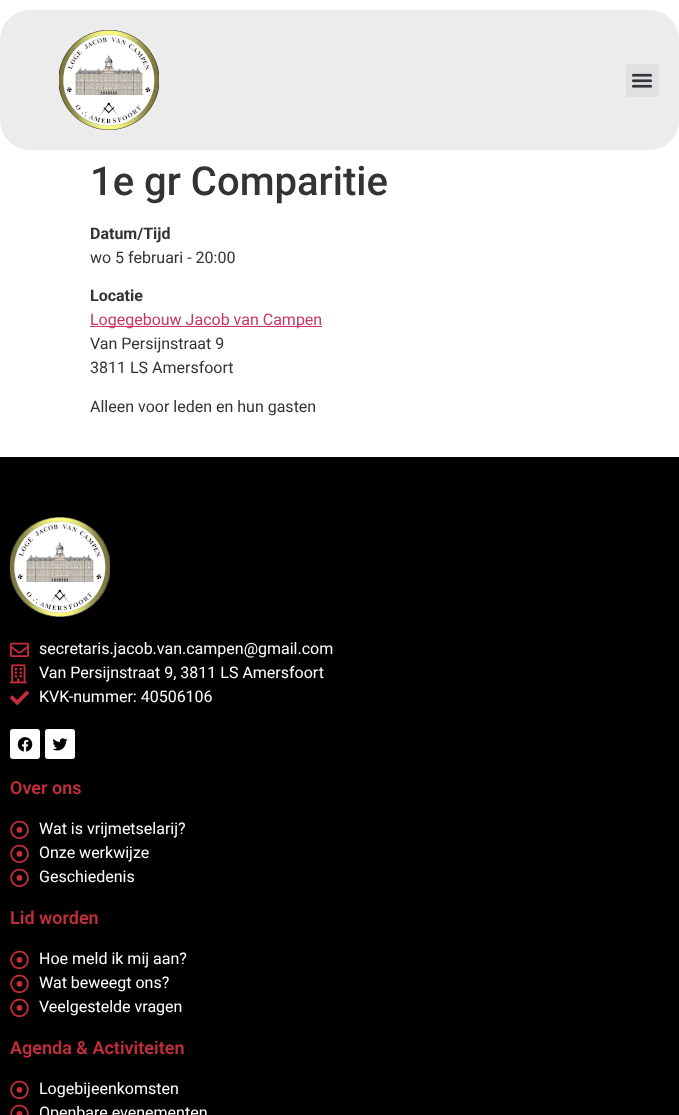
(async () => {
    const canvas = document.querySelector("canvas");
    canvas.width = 679;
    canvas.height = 1115;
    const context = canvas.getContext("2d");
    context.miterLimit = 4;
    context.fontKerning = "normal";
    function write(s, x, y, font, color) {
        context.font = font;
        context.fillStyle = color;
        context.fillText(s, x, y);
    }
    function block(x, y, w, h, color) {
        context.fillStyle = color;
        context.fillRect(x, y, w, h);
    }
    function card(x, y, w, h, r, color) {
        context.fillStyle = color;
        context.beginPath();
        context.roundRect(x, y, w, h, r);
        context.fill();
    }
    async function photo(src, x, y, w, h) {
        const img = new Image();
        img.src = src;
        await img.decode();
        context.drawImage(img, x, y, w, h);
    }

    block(0, 0, 679, 1115, "rgb(255, 255, 255)");
    card(0, 10, 679, 140, 30, "rgb(236, 236, 236)");
    await photo("media/1.png", 59, 30, 100, 100);
    card(626, 64, 33, 33, 3, "rgb(224, 224, 224)");
    await photo("media/2.png", 631, 73, 22, 15);
    write("1e gr Comparitie", 90, 195, "500 40px Roboto", "rgb(51, 51, 51)");
    write("Datum/Tijd", 90, 239, "bold 16px Roboto", "rgb(51, 51, 51)");
    write("wo 5 februari - 20:00", 90, 263, "16px Roboto", "rgb(51, 51, 51)");
    write("Locatie", 90, 301, "bold 16px Roboto", "rgb(51, 51, 51)");
    block(90, 326, 232, 1, "rgb(204, 51, 102)");
    write("Logegebouw Jacob van Campen", 90, 325, "16px Roboto", "rgb(204, 51, 102)");
    write("Van Persijnstraat 9", 90, 349, "16px Roboto", "rgb(51, 51, 51)");
    write("3811 LS Amersfoort", 90, 373, "16px Roboto", "rgb(51, 51, 51)");
    write("Alleen voor leden en hun gasten", 90, 412, "16px Roboto", "rgb(51, 51, 51)");
    block(0, 457, 679, 658, "rgb(0, 0, 0)");
    await photo("media/3.png", 10, 517, 100, 100);
    await photo("media/4.png", 10, 642, 19, 15);
    write("secretaris.jacob.van.campen@gmail.com", 39, 654, "16px Roboto", "rgb(255, 255, 255)");
    await photo("media/5.png", 10, 664, 17, 20);
    write("Van Persijnstraat 9, 3811 LS Amersfoort", 39, 678, "16px Roboto", "rgb(255, 255, 255)");
    await photo("media/6.png", 10, 690, 19, 15);
    write("KVK-nummer: 40506106", 39, 702, "16px Roboto", "rgb(255, 255, 255)");
    card(10, 729, 30, 30, 3, "rgb(255, 255, 255)");
    await photo("media/7.png", 17, 737, 16, 15);
    card(45, 729, 30, 30, 3, "rgb(255, 255, 255)");
    await photo("media/8.png", 52, 738, 16, 13);
    write("Over ons", 10, 794, "600 18px Roboto", "rgb(195, 46, 58)");
    await photo("media/9.png", 10, 820, 19, 20);
    write("Wat is vrijmetselarij?", 39, 834, "16px Roboto", "rgb(255, 255, 255)");
    await photo("media/9.png", 10, 844, 19, 20);
    write("Onze werkwijze", 39, 858, "16px Roboto", "rgb(255, 255, 255)");
    await photo("media/9.png", 10, 868, 19, 20);
    write("Geschiedenis", 39, 882, "16px Roboto", "rgb(255, 255, 255)");
    write("Lid worden", 10, 924, "600 18px Roboto", "rgb(195, 46, 58)");
    await photo("media/9.png", 10, 950, 19, 20);
    write("Hoe meld ik mij aan?", 39, 964, "16px Roboto", "rgb(255, 255, 255)");
    await photo("media/9.png", 10, 974, 19, 20);
    write("Wat beweegt ons?", 39, 988, "16px Roboto", "rgb(255, 255, 255)");
    await photo("media/9.png", 10, 998, 19, 20);
    write("Veelgestelde vragen", 39, 1012, "16px Roboto", "rgb(255, 255, 255)");
    write("Agenda & Activiteiten", 10, 1054, "600 18px Roboto", "rgb(195, 46, 58)");
    await photo("media/9.png", 10, 1080, 19, 20);
    write("Logebijeenkomsten", 39, 1094, "16px Roboto", "rgb(255, 255, 255)");
    await photo("media/10.png", 10, 1104, 19, 11);
    write("Openbare evenementen", 39, 1118, "16px Roboto", "rgb(255, 255, 255)");
})();
